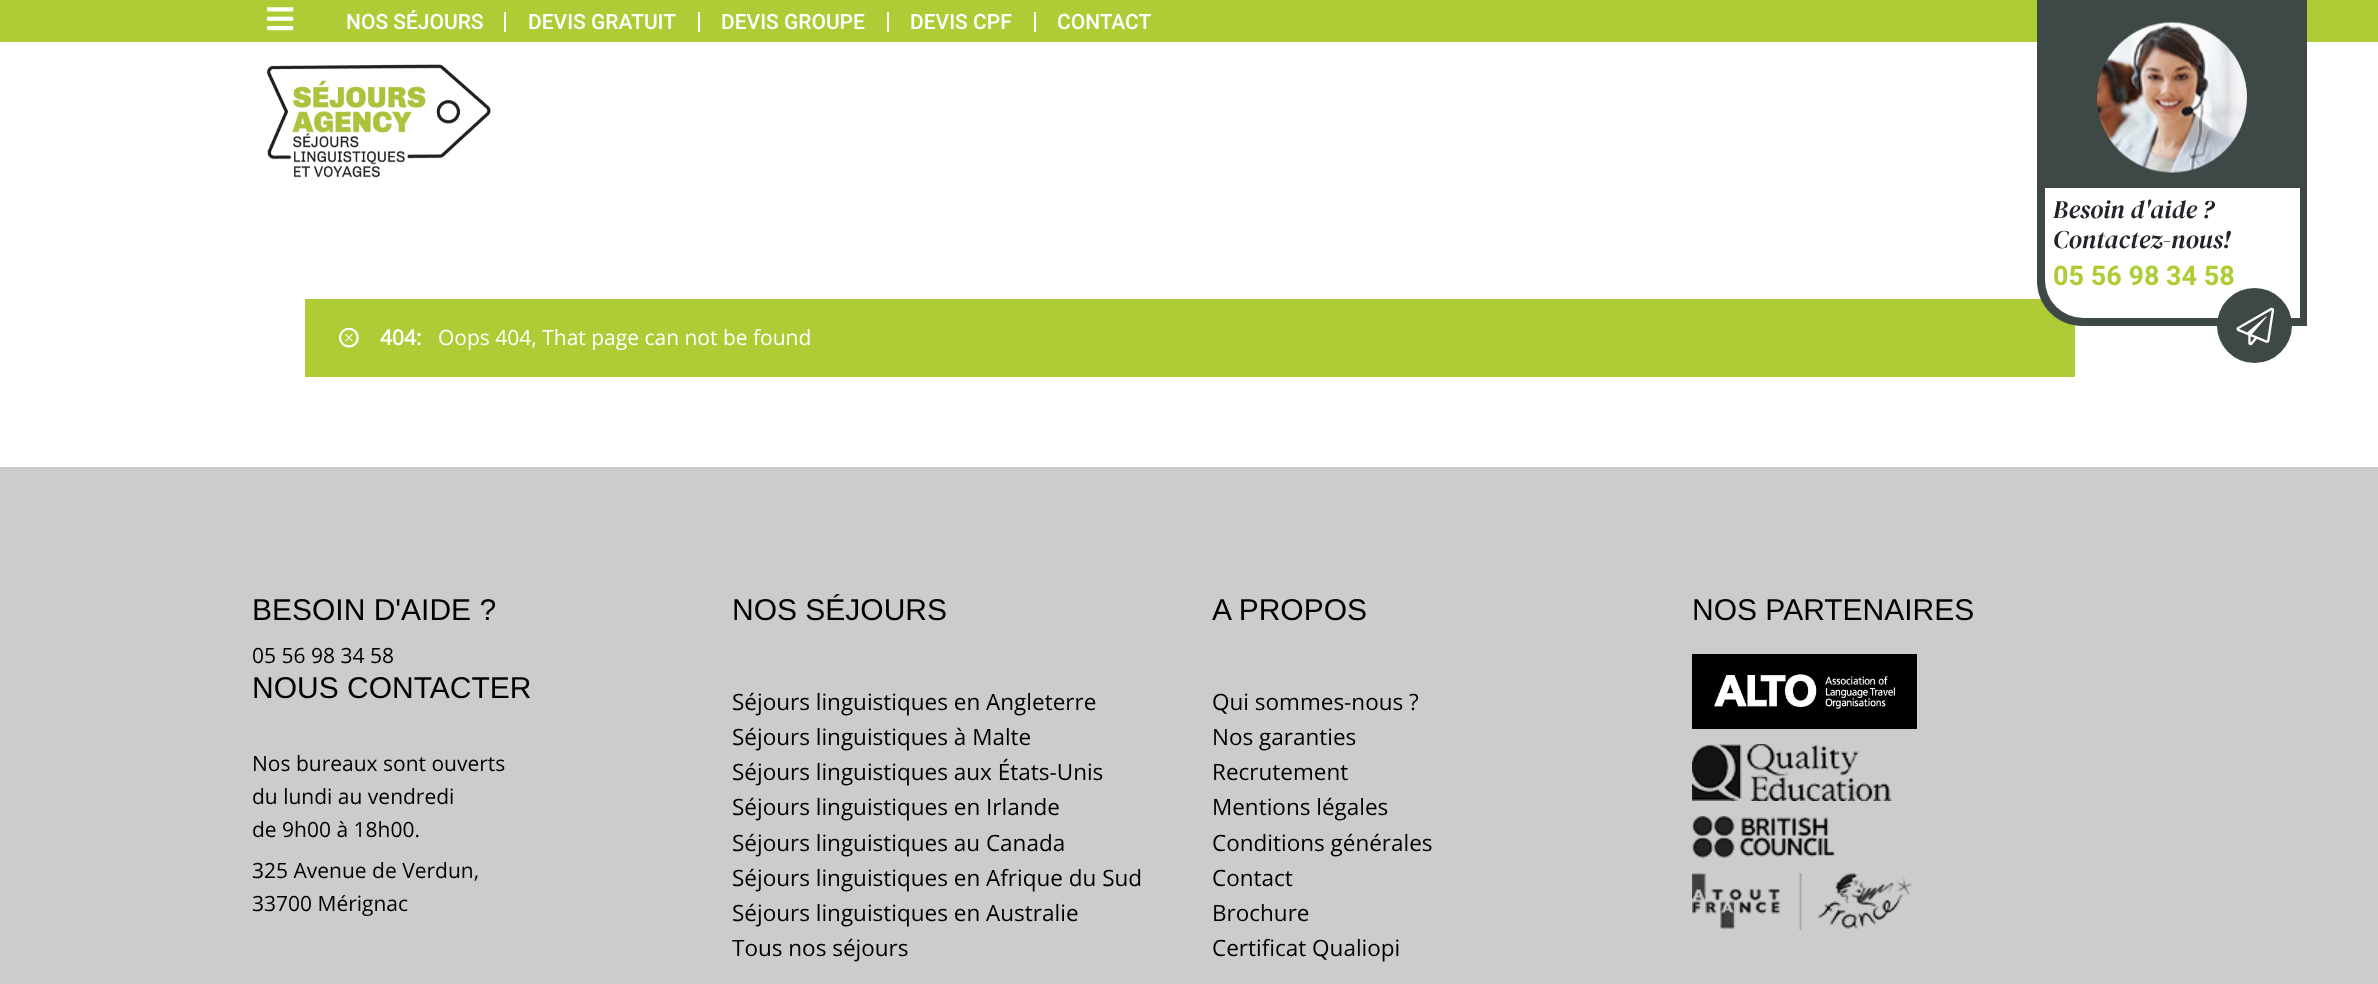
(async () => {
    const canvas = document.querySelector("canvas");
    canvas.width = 2378;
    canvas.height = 984;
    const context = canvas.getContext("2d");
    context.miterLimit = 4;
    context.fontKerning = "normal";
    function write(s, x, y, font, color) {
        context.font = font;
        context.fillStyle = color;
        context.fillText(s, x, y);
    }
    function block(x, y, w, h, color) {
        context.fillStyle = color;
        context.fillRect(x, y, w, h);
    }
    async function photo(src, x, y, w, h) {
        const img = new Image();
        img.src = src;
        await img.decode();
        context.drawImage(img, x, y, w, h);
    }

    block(0, 0, 2378, 984, "rgb(255, 255, 255)");
    block(0, 0, 2378, 42, "rgb(173, 204, 53)");
    await photo("media/1.png", 267, 7, 27, 24);
    write("NOS SÉJOURS", 346, 29, "500 21px Roboto", "rgb(255, 255, 255)");
    block(504, 12, 2, 20, "rgb(255, 255, 255)");
    write("DEVIS GRATUIT", 528, 29, "500 21px Roboto", "rgb(255, 255, 255)");
    block(698, 12, 2, 20, "rgb(255, 255, 255)");
    write("DEVIS GROUPE", 721, 29, "500 21px Roboto", "rgb(255, 255, 255)");
    block(887, 12, 2, 20, "rgb(255, 255, 255)");
    write("DEVIS CPF", 910, 29, "500 21px Roboto", "rgb(255, 255, 255)");
    block(1034, 12, 2, 20, "rgb(255, 255, 255)");
    write("CONTACT", 1057, 29, "500 21px Roboto", "rgb(255, 255, 255)");
    await photo("media/2.png", 267, 64, 224, 114);
    block(305, 299, 1770, 78, "rgb(173, 204, 53)");
    context.fillStyle = "rgb(62, 72, 71)";
    context.beginPath();
    context.roundRect(2037, 0, 270, 326, [0, 0, 0, 45]);
    context.fill();
    await photo("media/3.png", 2097, 22, 150, 151);
    context.fillStyle = "rgb(255, 255, 255)";
    context.beginPath();
    context.roundRect(2045, 188, 255, 130, [0, 0, 0, 38]);
    context.fill();
    write("Besoin d'aide ?", 2053, 218, "italic 25.5px DM Serif Display", "rgb(33, 37, 41)");
    write("Contactez-nous!", 2053, 248, "italic 25.5px DM Serif Display", "rgb(33, 37, 41)");
    write("05 56 98 34 58", 2053, 285, "bold 27px Roboto", "rgb(173, 204, 53)");
    context.fillStyle = "rgb(62, 72, 71)";
    context.beginPath();
    context.arc(2254.5, 325.5, 37.5, 0, Math.PI * 2);
    context.fill();
    await photo("media/4.png", 2236, 307, 39, 39);
    await photo("media/5.png", 339, 327, 20, 21);
    write("404:", 380, 345, "bold 21px Open Sans", "rgb(255, 255, 255)");
    write("Oops 404, That page can not be found", 438, 345, "21px Open Sans", "rgb(255, 255, 255)");
    block(0, 467, 2378, 517, "rgb(204, 204, 204)");
    write("BESOIN D'AIDE ?", 252, 620, "30px Liberation Sans", "rgb(0, 0, 0)");
    write("05 56 98 34 58", 252, 663, "21px Open Sans", "rgb(0, 0, 0)");
    write("NOUS CONTACTER", 252, 698, "30px Liberation Sans", "rgb(0, 0, 0)");
    write("Nos bureaux sont ouverts", 252, 771, "21px Open Sans", "rgb(0, 0, 0)");
    write("du lundi au vendredi", 252, 804, "21px Open Sans", "rgb(0, 0, 0)");
    write("de 9h00 à 18h00.", 252, 837, "21px Open Sans", "rgb(0, 0, 0)");
    write("325 Avenue de Verdun,", 252, 878, "21px Open Sans", "rgb(0, 0, 0)");
    write("33700 Mérignac", 252, 911, "21px Open Sans", "rgb(0, 0, 0)");
    write("NOS SÉJOURS", 732, 620, "30px Liberation Sans", "rgb(0, 0, 0)");
    write("Séjours linguistiques en Angleterre", 732, 710, "22.5px Open Sans", "rgb(0, 0, 0)");
    write("Séjours linguistiques à Malte", 732, 745, "22.5px Open Sans", "rgb(0, 0, 0)");
    write("Séjours linguistiques aux États-Unis", 732, 780, "22.5px Open Sans", "rgb(0, 0, 0)");
    write("Séjours linguistiques en Irlande", 732, 815, "22.5px Open Sans", "rgb(0, 0, 0)");
    write("Séjours linguistiques au Canada", 732, 851, "22.5px Open Sans", "rgb(0, 0, 0)");
    write("Séjours linguistiques en Afrique du Sud", 732, 886, "22.5px Open Sans", "rgb(0, 0, 0)");
    write("Séjours linguistiques en Australie", 732, 921, "22.5px Open Sans", "rgb(0, 0, 0)");
    write("Tous nos séjours", 732, 956, "22.5px Open Sans", "rgb(0, 0, 0)");
    write("A PROPOS", 1212, 620, "30px Liberation Sans", "rgb(0, 0, 0)");
    write("Qui sommes-nous ?", 1212, 710, "22.5px Open Sans", "rgb(0, 0, 0)");
    write("Nos garanties", 1212, 745, "22.5px Open Sans", "rgb(0, 0, 0)");
    write("Recrutement", 1212, 780, "22.5px Open Sans", "rgb(0, 0, 0)");
    write("Mentions légales", 1212, 815, "22.5px Open Sans", "rgb(0, 0, 0)");
    write("Conditions générales", 1212, 851, "22.5px Open Sans", "rgb(0, 0, 0)");
    write("Contact", 1212, 886, "22.5px Open Sans", "rgb(0, 0, 0)");
    write("Brochure", 1212, 921, "22.5px Open Sans", "rgb(0, 0, 0)");
    write("Certificat Qualiopi", 1212, 956, "22.5px Open Sans", "rgb(0, 0, 0)");
    write("NOS PARTENAIRES", 1692, 620, "30px Liberation Sans", "rgb(0, 0, 0)");
    await photo("media/6.png", 1692, 654, 225, 75);
    await photo("media/7.png", 1692, 744, 200, 57);
    await photo("media/8.png", 1692, 816, 143, 42);
    await photo("media/9.png", 1692, 873, 221, 57);
})();
